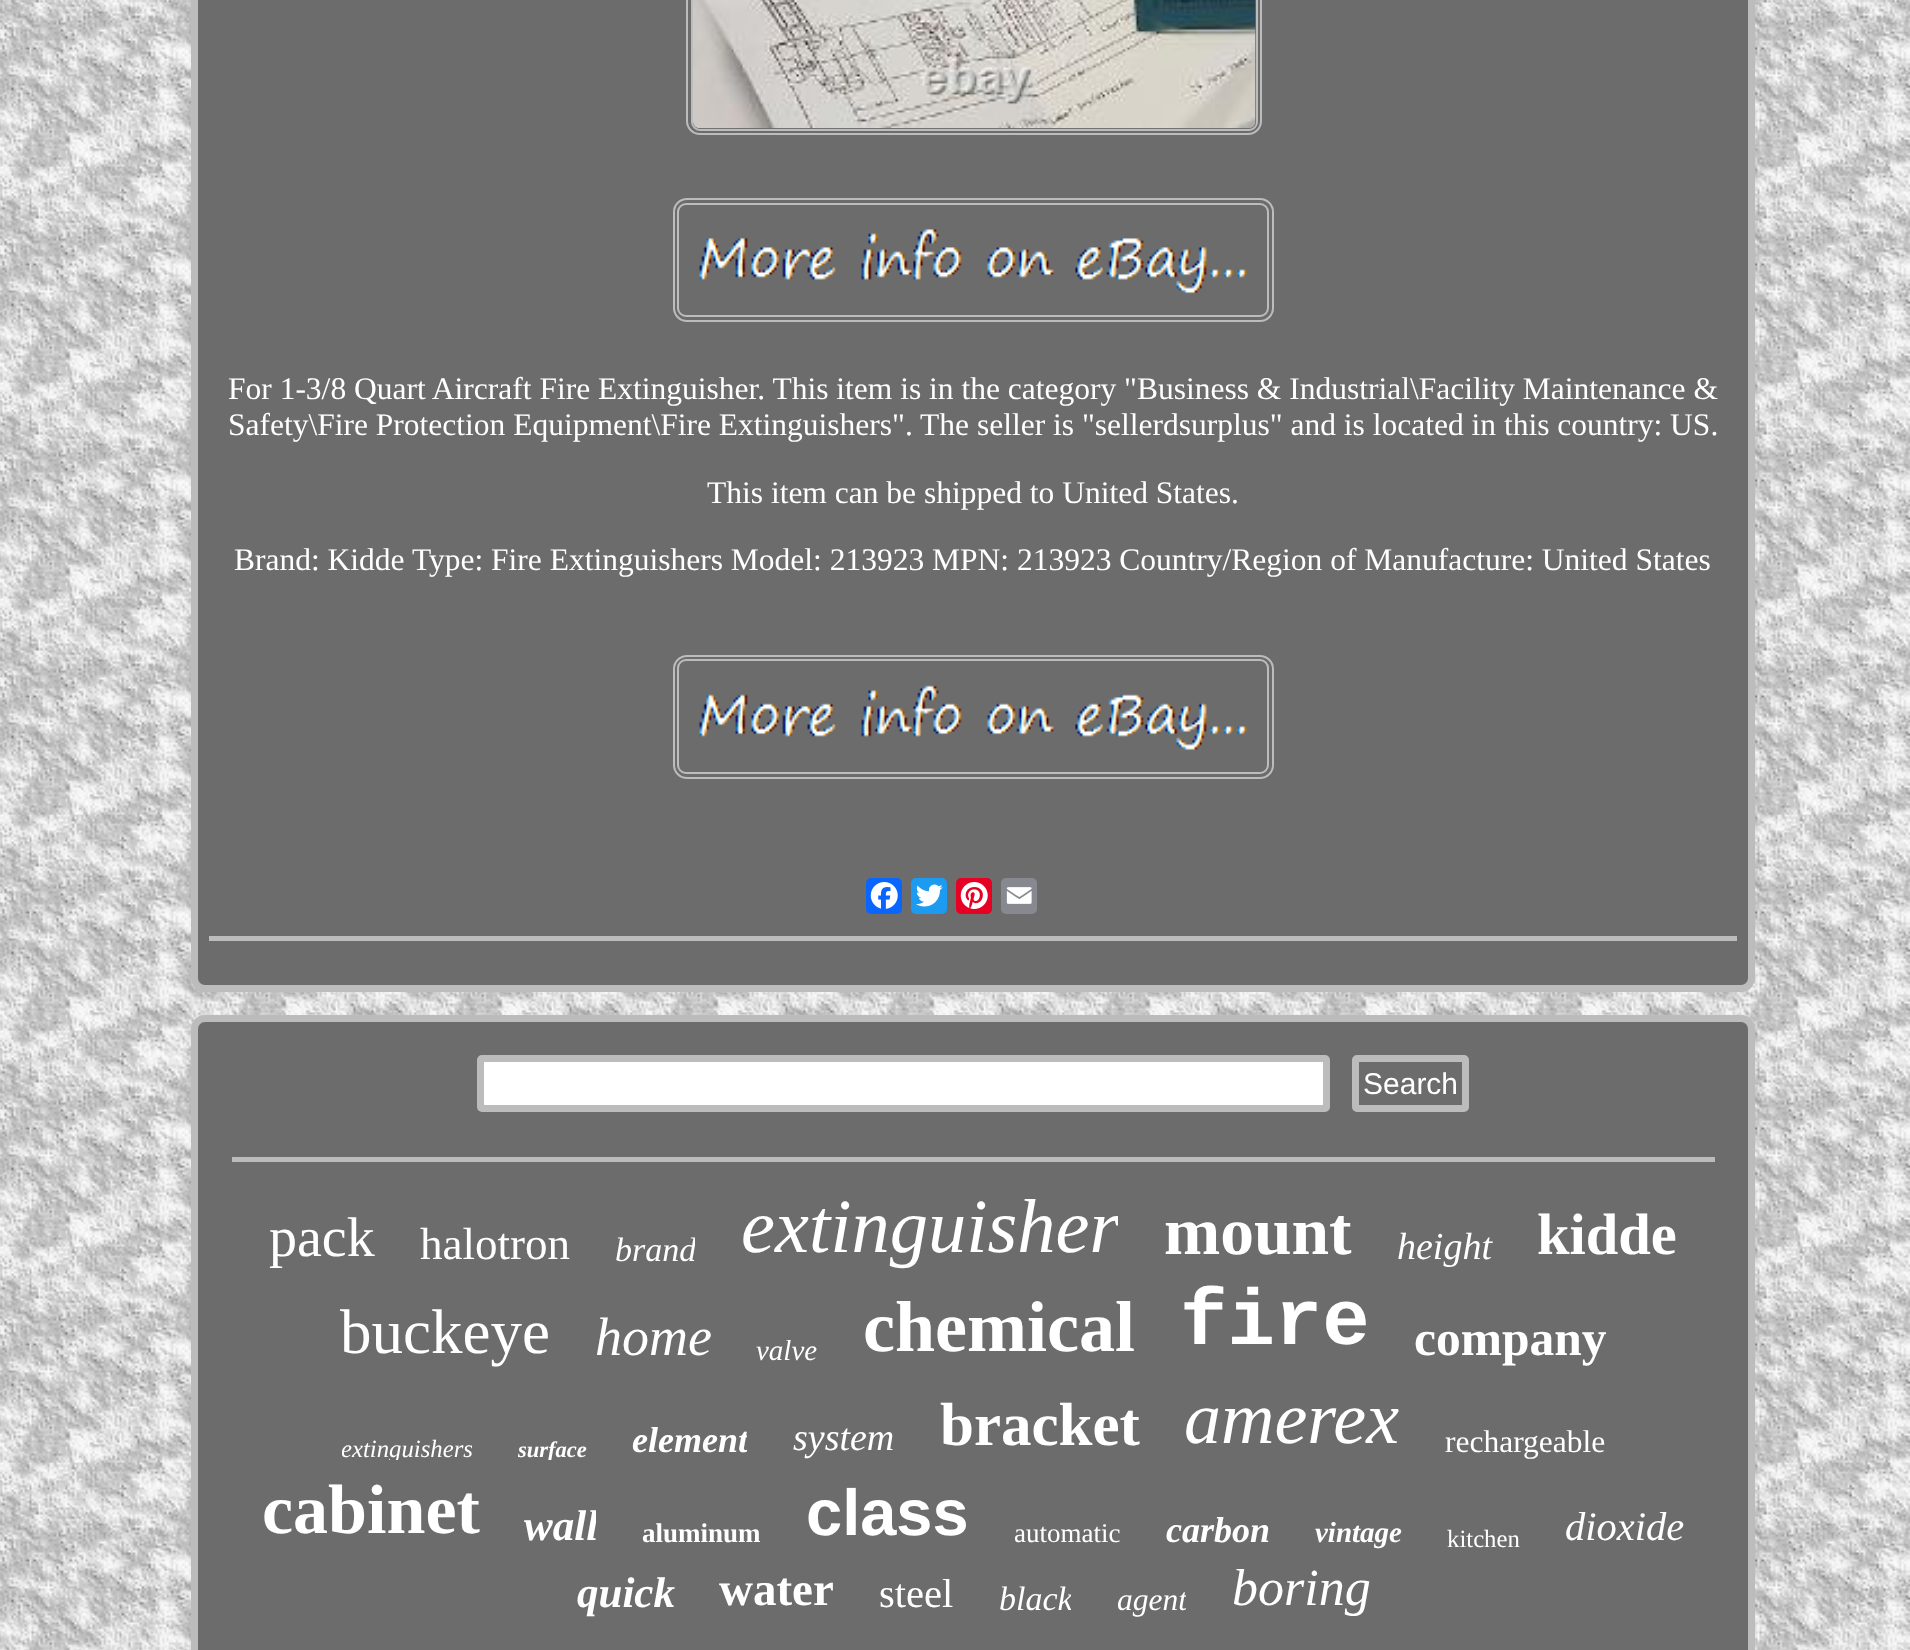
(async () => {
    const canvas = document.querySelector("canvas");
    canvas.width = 1910;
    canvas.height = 1650;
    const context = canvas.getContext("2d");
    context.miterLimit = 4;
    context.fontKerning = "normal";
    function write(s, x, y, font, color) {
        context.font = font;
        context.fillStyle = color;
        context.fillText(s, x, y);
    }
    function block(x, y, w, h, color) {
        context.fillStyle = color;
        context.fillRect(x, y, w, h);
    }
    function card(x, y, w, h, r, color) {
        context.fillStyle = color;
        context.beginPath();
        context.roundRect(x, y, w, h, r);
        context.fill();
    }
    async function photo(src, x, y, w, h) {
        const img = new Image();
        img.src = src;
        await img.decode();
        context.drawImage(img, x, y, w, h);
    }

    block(0, 0, 1910, 1650, "rgb(255, 255, 255)");
    await photo("media/1.png", 0, 0, 1910, 1650);
    context.fillStyle = "rgb(108, 108, 108)";
    context.beginPath();
    context.roundRect(194.5, -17.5, 1557, 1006, 10.5);
    context.fill();
    context.strokeStyle = "rgb(188, 188, 188)";
    context.lineWidth = 7;
    context.stroke();
    context.beginPath();
    context.roundRect(687, -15, 574, 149, 13);
    context.lineWidth = 2;
    context.stroke();
    context.beginPath();
    context.roundRect(692, -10, 565, 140, 8);
    context.stroke();
    await photo("media/2.png", 693, 0, 563, 129);
    context.beginPath();
    context.roundRect(674, 199, 599, 122, 13);
    context.stroke();
    context.beginPath();
    context.roundRect(678, 204, 590, 112, 8);
    context.stroke();
    await photo("media/3.png", 699, 229, 549, 65);
    write("For 1-3/8 Quart Aircraft Fire Extinguisher. This item is in the category \"Business & Industrial\\Facility Maintenance &", 228, 399, "31.5px Liberation Serif", "rgb(255, 255, 255)");
    write("Safety\\Fire Protection Equipment\\Fire Extinguishers\". The seller is \"sellerdsurplus\" and is located in this country: US.", 228, 435, "31.5px Liberation Serif", "rgb(255, 255, 255)");
    write("This item can be shipped to United States.", 707, 503, "31.5px Liberation Serif", "rgb(255, 255, 255)");
    write("Brand: Kidde Type: Fire Extinguishers Model: 213923 MPN: 213923 Country/Region of Manufacture: United States", 234, 570, "31.5px Liberation Serif", "rgb(255, 255, 255)");
    context.beginPath();
    context.roundRect(674, 656, 599, 122, 13);
    context.stroke();
    context.beginPath();
    context.roundRect(678, 660, 590, 113, 8);
    context.stroke();
    await photo("media/4.png", 699, 685, 549, 65);
    card(866, 878, 36, 36, 5, "rgb(8, 102, 255)");
    await photo("media/5.png", 870, 882, 28, 27);
    card(911, 878, 36, 36, 5, "rgb(29, 155, 240)");
    await photo("media/6.png", 916, 884, 27, 23);
    card(956, 878, 36, 36, 5, "rgb(230, 0, 35)");
    await photo("media/7.png", 960, 882, 28, 27);
    card(1001, 878, 36, 36, 5, "rgb(136, 137, 144)");
    await photo("media/8.png", 1006, 887, 26, 17);
    block(209, 936, 1528, 5, "rgb(188, 188, 188)");
    context.fillStyle = "rgb(108, 108, 108)";
    context.beginPath();
    context.roundRect(194.5, 1018.5, 1557, 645, 10.5);
    context.fill();
    context.lineWidth = 7;
    context.stroke();
    context.fillStyle = "rgb(255, 255, 255)";
    context.beginPath();
    context.roundRect(480.5, 1058.5, 846, 50, 1.5);
    context.fill();
    context.stroke();
    context.beginPath();
    context.roundRect(1355.5, 1058.5, 110, 50, 1.5);
    context.stroke();
    write("Search", 1363, 1094, "30px Liberation Sans", "rgb(255, 255, 255)");
    block(232, 1157, 1483, 5, "rgb(188, 188, 188)");
    write("pack", 269, 1256, "56px Liberation Serif", "rgb(255, 255, 255)");
    write("halotron", 420, 1259, "45px Liberation Serif", "rgb(255, 255, 255)");
    context.save();
    context.beginPath();
    context.rect(614, 1231, 81, 38);
    context.clip();
    write("brand", 615, 1261, "italic 34px Liberation Serif", "rgb(255, 255, 255)");
    context.restore();
    context.save();
    context.beginPath();
    context.rect(740, 1184, 378, 85);
    context.clip();
    write("extinguisher", 741, 1252, "italic 76.5px Liberation Serif", "rgb(255, 255, 255)");
    context.restore();
    write("mount", 1164, 1254, "bold 67.5px Liberation Serif", "rgb(255, 255, 255)");
    write("height", 1397, 1259, "italic 38px Liberation Serif", "rgb(255, 255, 255)");
    write("kidde", 1537, 1254, "bold 58.5px Liberation Serif", "rgb(255, 255, 255)");
    write("buckeye", 340, 1353, "63px Liberation Serif", "rgb(255, 255, 255)");
    write("home", 595, 1355, "italic 54px Liberation Serif", "rgb(255, 255, 255)");
    write("valve", 756, 1360, "italic 29px Liberation Serif", "rgb(255, 255, 255)");
    write("chemical", 863, 1351, "bold 72px Liberation Serif", "rgb(255, 255, 255)");
    write("fire", 1180, 1344, "bold 79px Liberation Mono", "rgb(255, 255, 255)");
    write("company", 1414, 1355, "bold 49.5px Liberation Serif", "rgb(255, 255, 255)");
    context.save();
    context.beginPath();
    context.rect(342, 1433, 131, 27);
    context.clip();
    write("extinguishers", 341, 1457, "italic 24.75px Liberation Serif", "rgb(255, 255, 255)");
    context.restore();
    context.save();
    context.beginPath();
    context.rect(518, 1436, 69, 24);
    context.clip();
    write("surface", 518, 1457, "italic bold 22.5px Liberation Serif", "rgb(255, 255, 255)");
    context.restore();
    context.save();
    context.beginPath();
    context.rect(632, 1420, 115, 40);
    context.clip();
    write("element", 632, 1452, "italic bold 36px Liberation Serif", "rgb(255, 255, 255)");
    context.restore();
    write("system", 793, 1450, "italic 38px Liberation Serif", "rgb(255, 255, 255)");
    write("bracket", 940, 1445, "bold 61px Liberation Serif", "rgb(255, 255, 255)");
    write("amerex", 1184, 1443, "italic 74px Liberation Serif", "rgb(255, 255, 255)");
    write("rechargeable", 1445, 1452, "31.5px Liberation Serif", "rgb(255, 255, 255)");
    write("cabinet", 262, 1533, "bold 70px Liberation Serif", "rgb(255, 255, 255)");
    context.save();
    context.beginPath();
    context.rect(524, 1501, 72, 49);
    context.clip();
    write("wall", 524, 1540, "italic bold 43px Liberation Serif", "rgb(255, 255, 255)");
    context.restore();
    write("aluminum", 642, 1542, "bold 27px Liberation Serif", "rgb(255, 255, 255)");
    write("class", 806, 1535, "bold 65px Liberation Sans", "rgb(255, 255, 255)");
    write("automatic", 1014, 1542, "27px Liberation Serif", "rgb(255, 255, 255)");
    write("carbon", 1166, 1542, "italic bold 36px Liberation Serif", "rgb(255, 255, 255)");
    write("vintage", 1315, 1542, "italic bold 29px Liberation Serif", "rgb(255, 255, 255)");
    write("kitchen", 1447, 1547, "24.75px Liberation Serif", "rgb(255, 255, 255)");
    write("dioxide", 1565, 1540, "italic 40.5px Liberation Serif", "rgb(255, 255, 255)");
    write("quick", 577, 1607, "italic bold 43px Liberation Serif", "rgb(255, 255, 255)");
    write("water", 719, 1605, "bold 47px Liberation Serif", "rgb(255, 255, 255)");
    write("steel", 879, 1607, "40.5px Liberation Serif", "rgb(255, 255, 255)");
    context.save();
    context.beginPath();
    context.rect(999, 1580, 72, 38);
    context.clip();
    write("black", 999, 1610, "italic 34px Liberation Serif", "rgb(255, 255, 255)");
    context.restore();
    context.save();
    context.beginPath();
    context.rect(1116, 1582, 70, 36);
    context.clip();
    write("agent", 1117, 1610, "italic 31.5px Liberation Serif", "rgb(255, 255, 255)");
    context.restore();
    write("boring", 1232, 1605, "italic 52px Liberation Serif", "rgb(255, 255, 255)");
})();
